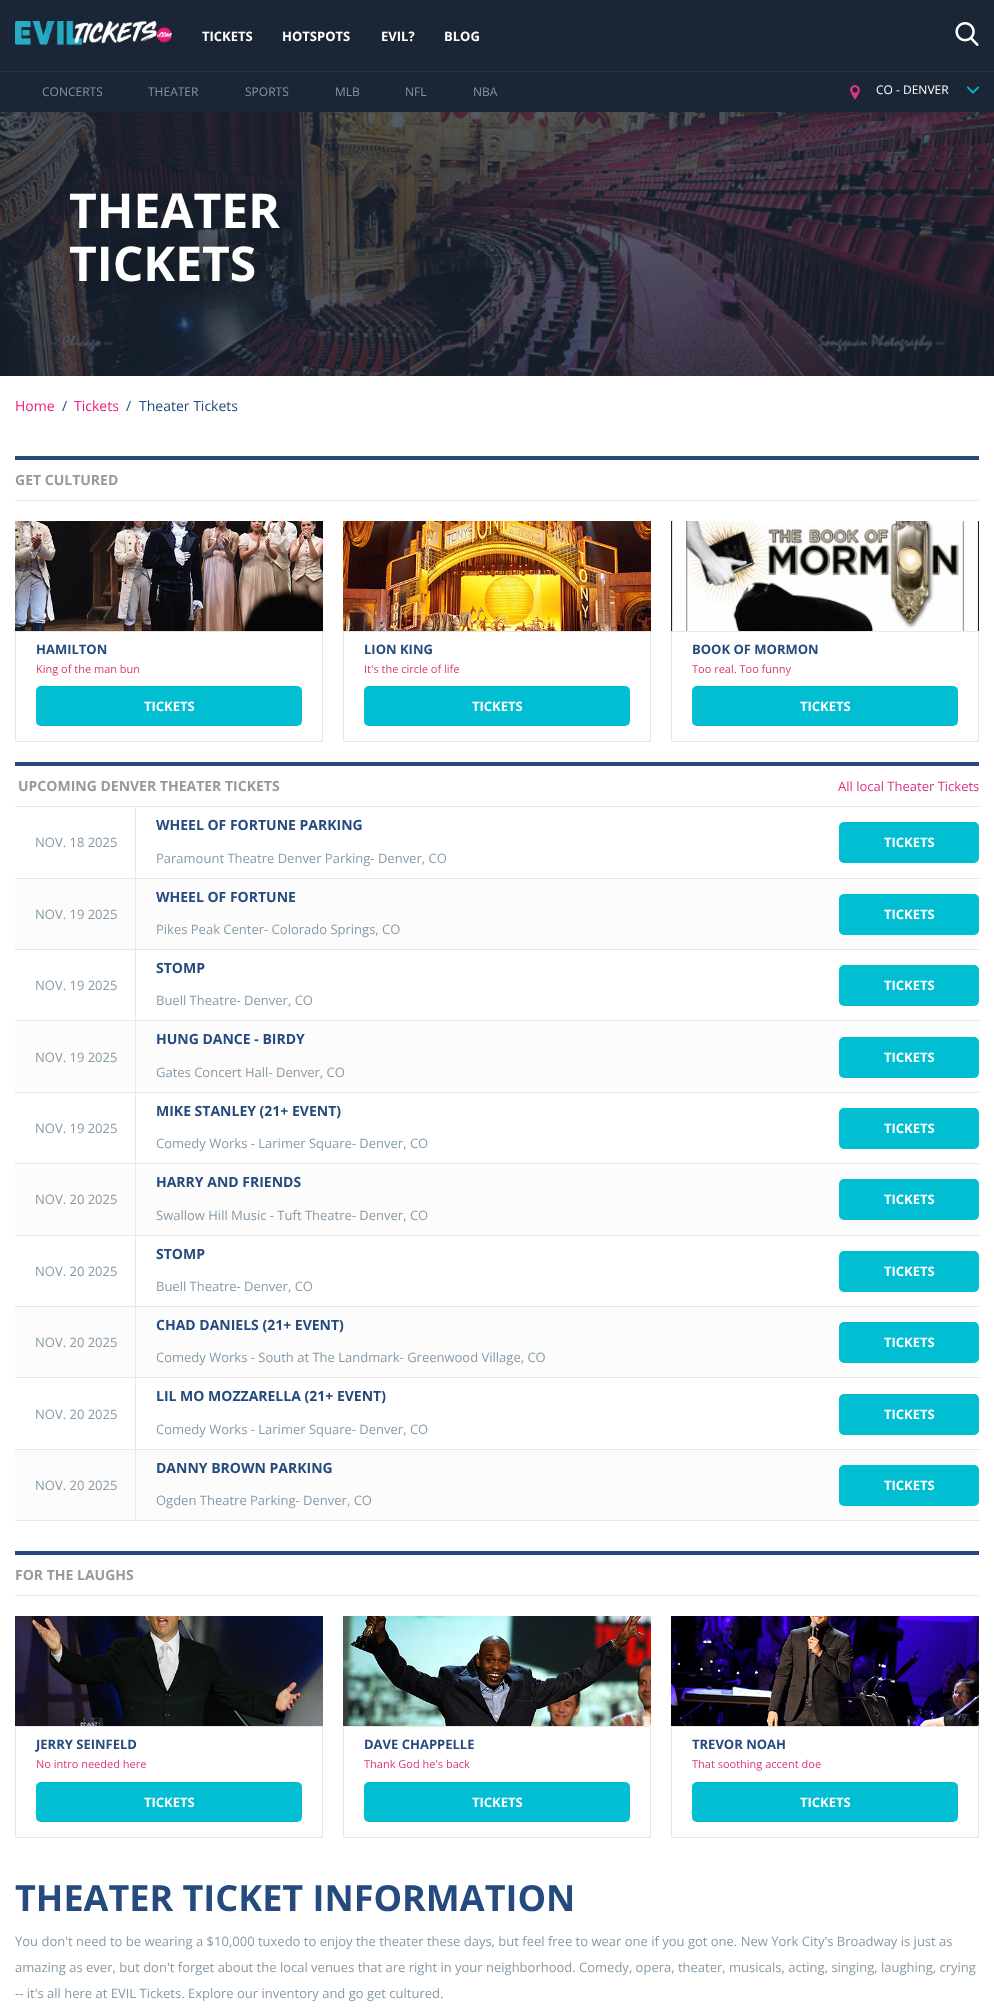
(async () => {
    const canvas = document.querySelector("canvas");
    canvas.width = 994;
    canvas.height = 2014;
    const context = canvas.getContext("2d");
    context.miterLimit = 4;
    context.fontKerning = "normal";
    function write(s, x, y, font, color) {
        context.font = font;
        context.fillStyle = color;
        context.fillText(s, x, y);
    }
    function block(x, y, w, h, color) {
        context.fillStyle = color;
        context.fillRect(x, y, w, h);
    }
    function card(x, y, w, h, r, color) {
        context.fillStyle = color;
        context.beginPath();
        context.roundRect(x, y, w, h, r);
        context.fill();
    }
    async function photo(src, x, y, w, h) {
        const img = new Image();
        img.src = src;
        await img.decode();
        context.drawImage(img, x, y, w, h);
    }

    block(0, 0, 994, 2014, "rgb(255, 255, 255)");
    block(0, 0, 994, 112, "rgb(26, 38, 54)");
    block(0, 71, 994, 1, "rgb(36, 48, 62)");
    await photo("media/1.png", 15, 21, 157, 24);
    await photo("media/2.png", 955, 22, 24, 24);
    write("TICKETS", 202, 41, "bold 13px Open Sans", "rgb(255, 255, 255)");
    write("CONCERTS", 42, 96, "12px Open Sans", "rgb(141, 147, 155)");
    write("THEATER", 148, 96, "12px Open Sans", "rgb(141, 147, 155)");
    write("SPORTS", 245, 96, "12px Open Sans", "rgb(141, 147, 155)");
    write("MLB", 335, 96, "12px Open Sans", "rgb(141, 147, 155)");
    write("NFL", 405, 96, "12px Open Sans", "rgb(141, 147, 155)");
    write("NBA", 473, 96, "12px Open Sans", "rgb(141, 147, 155)");
    write("HOTSPOTS", 282, 41, "bold 13px Open Sans", "rgb(255, 255, 255)");
    write("EVIL?", 381, 41, "bold 13px Open Sans", "rgb(255, 255, 255)");
    write("BLOG", 444, 41, "bold 13px Open Sans", "rgb(255, 255, 255)");
    await photo("media/3.png", 850, 85, 10, 15);
    write("CO - DENVER", 876, 94, "12px Open Sans", "rgb(255, 255, 255)");
    await photo("media/4.png", 967, 86, 12, 8);
    await photo("media/5.png", 0, 112, 994, 264);
    write("THEATER", 69, 228, "bold 48px Open Sans", "rgb(255, 255, 255)");
    write("TICKETS", 69, 281, "bold 48px Open Sans", "rgb(255, 255, 255)");
    write("Home", 15, 411, "14px Open Sans", "rgb(239, 26, 124)");
    write("/", 62, 411, "14px Open Sans", "rgb(37, 74, 125)");
    write("Tickets", 74, 411, "14px Open Sans", "rgb(239, 26, 124)");
    write("/", 126, 411, "14px Open Sans", "rgb(37, 74, 125)");
    write("Theater Tickets", 139, 411, "14px Open Sans", "rgb(37, 74, 125)");
    block(15, 456, 964, 4, "rgb(37, 74, 125)");
    block(15, 500, 964, 1, "rgb(232, 232, 232)");
    write("GET CULTURED", 15, 485, "bold 14px Open Sans", "rgb(153, 153, 153)");
    await photo("media/6.png", 15, 521, 308, 110);
    context.strokeStyle = "rgb(232, 232, 232)";
    context.strokeRect(15.5, 631.5, 307, 110);
    write("HAMILTON", 36, 654, "bold 13px Open Sans", "rgb(37, 74, 125)");
    write("King of the man bun", 36, 673, "11px Open Sans", "rgb(219, 52, 128)");
    card(36, 686, 266, 40, 5, "rgb(1, 190, 211)");
    write("TICKETS", 144, 711, "bold 13px Open Sans", "rgb(255, 255, 255)");
    await photo("media/7.png", 343, 521, 308, 110);
    context.strokeRect(343.5, 631.5, 307, 110);
    write("LION KING", 364, 654, "bold 13px Open Sans", "rgb(37, 74, 125)");
    write("It's the circle of life", 364, 673, "11px Open Sans", "rgb(219, 52, 128)");
    card(364, 686, 266, 40, 5, "rgb(1, 190, 211)");
    write("TICKETS", 472, 711, "bold 13px Open Sans", "rgb(255, 255, 255)");
    await photo("media/8.png", 671, 521, 308, 110);
    context.strokeRect(671.5, 631.5, 307, 110);
    write("BOOK OF MORMON", 692, 654, "bold 13px Open Sans", "rgb(37, 74, 125)");
    write("Too real. Too funny", 692, 673, "11px Open Sans", "rgb(219, 52, 128)");
    card(692, 686, 266, 40, 5, "rgb(1, 190, 211)");
    write("TICKETS", 800, 711, "bold 13px Open Sans", "rgb(255, 255, 255)");
    block(15, 762, 964, 4, "rgb(37, 74, 125)");
    write("UPCOMING DENVER THEATER TICKETS", 18, 791, "bold 14px Open Sans", "rgb(153, 153, 153)");
    write("All local Theater Tickets", 838, 791, "13px Open Sans", "rgb(219, 52, 128)");
    block(135, 806, 845, 1, "rgb(232, 232, 232)");
    block(135, 878, 845, 1, "rgb(232, 232, 232)");
    block(15, 879, 964, 70, "rgb(252, 252, 252)");
    block(135, 949, 845, 1, "rgb(232, 232, 232)");
    block(135, 1020, 845, 1, "rgb(232, 232, 232)");
    block(15, 1021, 964, 71, "rgb(252, 252, 252)");
    block(135, 1092, 845, 1, "rgb(232, 232, 232)");
    block(135, 1163, 845, 1, "rgb(232, 232, 232)");
    block(15, 1164, 964, 71, "rgb(252, 252, 252)");
    block(135, 1235, 845, 1, "rgb(232, 232, 232)");
    block(135, 1306, 845, 1, "rgb(232, 232, 232)");
    block(15, 1307, 964, 70, "rgb(252, 252, 252)");
    block(135, 1377, 845, 1, "rgb(232, 232, 232)");
    block(135, 1449, 845, 1, "rgb(232, 232, 232)");
    block(15, 1450, 964, 70, "rgb(252, 252, 252)");
    block(135, 1520, 845, 1, "rgb(232, 232, 232)");
    block(135, 1449, 1, 72, "rgb(232, 232, 232)");
    block(15, 1449, 121, 1, "rgb(232, 232, 232)");
    block(135, 1377, 1, 73, "rgb(232, 232, 232)");
    block(15, 1377, 121, 1, "rgb(232, 232, 232)");
    block(135, 1306, 1, 72, "rgb(232, 232, 232)");
    block(15, 1306, 121, 1, "rgb(232, 232, 232)");
    block(135, 1235, 1, 72, "rgb(232, 232, 232)");
    block(15, 1235, 121, 1, "rgb(232, 232, 232)");
    block(135, 1163, 1, 73, "rgb(232, 232, 232)");
    block(15, 1163, 121, 1, "rgb(232, 232, 232)");
    block(135, 1092, 1, 72, "rgb(232, 232, 232)");
    block(15, 1092, 121, 1, "rgb(232, 232, 232)");
    block(135, 1020, 1, 73, "rgb(232, 232, 232)");
    block(15, 1020, 121, 1, "rgb(232, 232, 232)");
    block(135, 949, 1, 72, "rgb(232, 232, 232)");
    block(15, 949, 121, 1, "rgb(232, 232, 232)");
    block(135, 878, 1, 72, "rgb(232, 232, 232)");
    block(15, 878, 121, 1, "rgb(232, 232, 232)");
    block(135, 806, 1, 73, "rgb(232, 232, 232)");
    block(15, 806, 121, 1, "rgb(232, 232, 232)");
    write("NOV. 18 2025", 35, 847, "13px Open Sans", "rgb(135, 154, 168)");
    write("WHEEL OF FORTUNE PARKING", 156, 830, "bold 14px Open Sans", "rgb(37, 74, 125)");
    write("Paramount Theatre Denver Parking- Denver, CO", 156, 863, "13px Open Sans", "rgb(135, 154, 168)");
    card(839, 822, 140, 41, 5, "rgb(1, 190, 211)");
    write("TICKETS", 884, 847, "bold 13px Open Sans", "rgb(255, 255, 255)");
    write("NOV. 19 2025", 35, 919, "13px Open Sans", "rgb(135, 154, 168)");
    write("WHEEL OF FORTUNE", 156, 902, "bold 14px Open Sans", "rgb(37, 74, 125)");
    write("Pikes Peak Center- Colorado Springs, CO", 156, 934, "13px Open Sans", "rgb(135, 154, 168)");
    card(839, 894, 140, 41, 5, "rgb(1, 190, 211)");
    write("TICKETS", 884, 919, "bold 13px Open Sans", "rgb(255, 255, 255)");
    write("NOV. 19 2025", 35, 990, "13px Open Sans", "rgb(135, 154, 168)");
    write("STOMP", 156, 973, "bold 14px Open Sans", "rgb(37, 74, 125)");
    write("Buell Theatre- Denver, CO", 156, 1005, "13px Open Sans", "rgb(135, 154, 168)");
    card(839, 965, 140, 41, 5, "rgb(1, 190, 211)");
    write("TICKETS", 884, 990, "bold 13px Open Sans", "rgb(255, 255, 255)");
    write("NOV. 19 2025", 35, 1062, "13px Open Sans", "rgb(135, 154, 168)");
    write("HUNG DANCE - BIRDY", 156, 1044, "bold 14px Open Sans", "rgb(37, 74, 125)");
    write("Gates Concert Hall- Denver, CO", 156, 1077, "13px Open Sans", "rgb(135, 154, 168)");
    card(839, 1037, 140, 41, 5, "rgb(1, 190, 211)");
    write("TICKETS", 884, 1062, "bold 13px Open Sans", "rgb(255, 255, 255)");
    write("NOV. 19 2025", 35, 1133, "13px Open Sans", "rgb(135, 154, 168)");
    write("MIKE STANLEY (21+ EVENT)", 156, 1116, "bold 14px Open Sans", "rgb(37, 74, 125)");
    write("Comedy Works - Larimer Square- Denver, CO", 156, 1148, "13px Open Sans", "rgb(135, 154, 168)");
    card(839, 1108, 140, 41, 5, "rgb(1, 190, 211)");
    write("TICKETS", 884, 1133, "bold 13px Open Sans", "rgb(255, 255, 255)");
    write("NOV. 20 2025", 35, 1204, "13px Open Sans", "rgb(135, 154, 168)");
    write("HARRY AND FRIENDS", 156, 1187, "bold 14px Open Sans", "rgb(37, 74, 125)");
    write("Swallow Hill Music - Tuft Theatre- Denver, CO", 156, 1220, "13px Open Sans", "rgb(135, 154, 168)");
    card(839, 1179, 140, 41, 5, "rgb(1, 190, 211)");
    write("TICKETS", 884, 1204, "bold 13px Open Sans", "rgb(255, 255, 255)");
    write("NOV. 20 2025", 35, 1276, "13px Open Sans", "rgb(135, 154, 168)");
    write("STOMP", 156, 1259, "bold 14px Open Sans", "rgb(37, 74, 125)");
    write("Buell Theatre- Denver, CO", 156, 1291, "13px Open Sans", "rgb(135, 154, 168)");
    card(839, 1251, 140, 41, 5, "rgb(1, 190, 211)");
    write("TICKETS", 884, 1276, "bold 13px Open Sans", "rgb(255, 255, 255)");
    write("NOV. 20 2025", 35, 1347, "13px Open Sans", "rgb(135, 154, 168)");
    write("CHAD DANIELS (21+ EVENT)", 156, 1330, "bold 14px Open Sans", "rgb(37, 74, 125)");
    write("Comedy Works - South at The Landmark- Greenwood Village, CO", 156, 1362, "13px Open Sans", "rgb(135, 154, 168)");
    card(839, 1322, 140, 41, 5, "rgb(1, 190, 211)");
    write("TICKETS", 884, 1347, "bold 13px Open Sans", "rgb(255, 255, 255)");
    write("NOV. 20 2025", 35, 1419, "13px Open Sans", "rgb(135, 154, 168)");
    write("LIL MO MOZZARELLA (21+ EVENT)", 156, 1401, "bold 14px Open Sans", "rgb(37, 74, 125)");
    write("Comedy Works - Larimer Square- Denver, CO", 156, 1434, "13px Open Sans", "rgb(135, 154, 168)");
    card(839, 1394, 140, 41, 5, "rgb(1, 190, 211)");
    write("TICKETS", 884, 1419, "bold 13px Open Sans", "rgb(255, 255, 255)");
    block(15, 1520, 121, 1, "rgb(232, 232, 232)");
    write("NOV. 20 2025", 35, 1490, "13px Open Sans", "rgb(135, 154, 168)");
    write("DANNY BROWN PARKING", 156, 1473, "bold 14px Open Sans", "rgb(37, 74, 125)");
    write("Ogden Theatre Parking- Denver, CO", 156, 1505, "13px Open Sans", "rgb(135, 154, 168)");
    card(839, 1465, 140, 41, 5, "rgb(1, 190, 211)");
    write("TICKETS", 884, 1490, "bold 13px Open Sans", "rgb(255, 255, 255)");
    block(15, 1551, 964, 4, "rgb(37, 74, 125)");
    block(15, 1595, 964, 1, "rgb(232, 232, 232)");
    write("FOR THE LAUGHS", 15, 1580, "bold 14px Open Sans", "rgb(153, 153, 153)");
    await photo("media/9.png", 15, 1616, 308, 110);
    context.strokeRect(15.5, 1726.5, 307, 111);
    write("JERRY SEINFELD", 36, 1749, "bold 13px Open Sans", "rgb(37, 74, 125)");
    write("No intro needed here", 36, 1768, "11px Open Sans", "rgb(219, 52, 128)");
    card(36, 1782, 266, 40, 5, "rgb(1, 190, 211)");
    write("TICKETS", 144, 1807, "bold 13px Open Sans", "rgb(255, 255, 255)");
    await photo("media/10.png", 343, 1616, 308, 110);
    context.strokeRect(343.5, 1726.5, 307, 111);
    write("DAVE CHAPPELLE", 364, 1749, "bold 13px Open Sans", "rgb(37, 74, 125)");
    write("Thank God he's back", 364, 1768, "11px Open Sans", "rgb(219, 52, 128)");
    card(364, 1782, 266, 40, 5, "rgb(1, 190, 211)");
    write("TICKETS", 472, 1807, "bold 13px Open Sans", "rgb(255, 255, 255)");
    await photo("media/11.png", 671, 1616, 308, 110);
    context.strokeRect(671.5, 1726.5, 307, 111);
    write("TREVOR NOAH", 692, 1749, "bold 13px Open Sans", "rgb(37, 74, 125)");
    write("That soothing accent doe", 692, 1768, "11px Open Sans", "rgb(219, 52, 128)");
    card(692, 1782, 266, 40, 5, "rgb(1, 190, 211)");
    write("TICKETS", 800, 1807, "bold 13px Open Sans", "rgb(255, 255, 255)");
    write("THEATER TICKET INFORMATION", 15, 1911, "bold 36px Open Sans", "rgb(37, 74, 125)");
    write("You don't need to be wearing a $10,000 tuxedo to enjoy the theater these days, but feel free to wear one if you got one. New York City's Broadway is just as", 15, 1946, "13px Open Sans", "rgb(135, 154, 168)");
    write("amazing as ever, but don't forget about the local venues that are right in your neighborhood. Comedy, opera, theater, musicals, acting, singing, laughing, crying", 15, 1972, "13px Open Sans", "rgb(135, 154, 168)");
    write("-- it's all here at EVIL Tickets. Explore our inventory and go get cultured.", 15, 1998, "13px Open Sans", "rgb(135, 154, 168)");
})();
